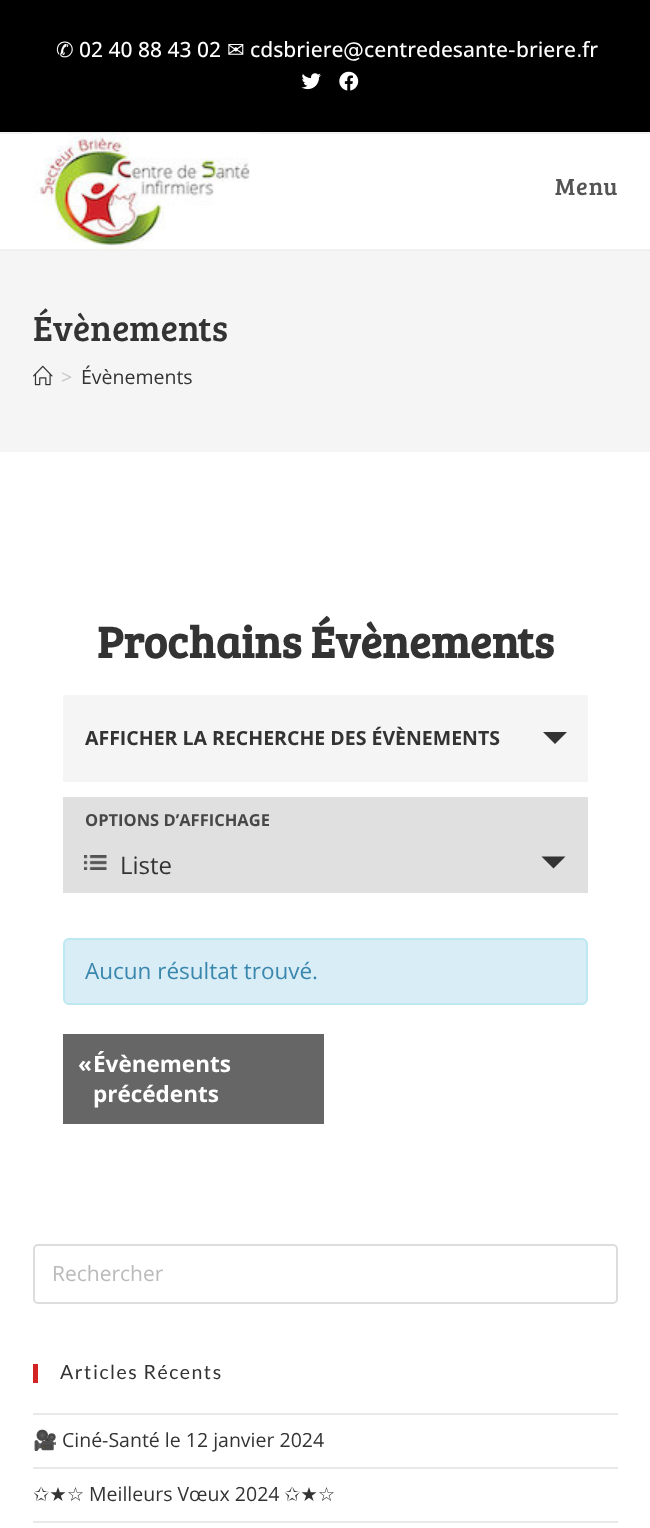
(async () => {
    const canvas = document.querySelector("canvas");
    canvas.width = 650;
    canvas.height = 1528;
    const context = canvas.getContext("2d");
    context.miterLimit = 4;
    context.fontKerning = "normal";
    function write(s, x, y, font, color) {
        context.font = font;
        context.fillStyle = color;
        context.fillText(s, x, y);
    }
    function block(x, y, w, h, color) {
        context.fillStyle = color;
        context.fillRect(x, y, w, h);
    }
    async function photo(src, x, y, w, h) {
        const img = new Image();
        img.src = src;
        await img.decode();
        context.drawImage(img, x, y, w, h);
    }

    block(0, 0, 650, 1528, "rgb(255, 255, 255)");
    block(0, 0, 650, 132, "rgb(0, 0, 0)");
    block(0, 132, 650, 2, "rgb(241, 241, 241)");
    write("✆", 56, 57, "21px DejaVu Sans", "rgb(255, 255, 255)");
    write("02 40 88 43 02", 79, 57, "500 21px Open Sans", "rgb(255, 255, 255)");
    write("✉︎", 227, 57, "21px DejaVu Sans", "rgb(255, 255, 255)");
    write("cdsbriere", 250, 57, "500 21px Open Sans", "rgb(255, 255, 255)");
    write("@", 343, 57, "21px DejaVu Sans", "rgb(255, 255, 255)");
    write("centredesante", 364, 57, "500 21px Open Sans", "rgb(255, 255, 255)");
    write("-", 508, 57, "21px DejaVu Sans", "rgb(255, 255, 255)");
    write("briere", 516, 57, "500 21px Open Sans", "rgb(255, 255, 255)");
    write("fr", 582, 57, "500 21px Open Sans", "rgb(255, 255, 255)");
    write(".", 576, 57, "21px DejaVu Sans", "rgb(255, 255, 255)");
    await photo("media/1.png", 301, 73, 20, 17);
    await photo("media/2.png", 339, 71, 20, 20);
    block(0, 249, 650, 2, "rgb(241, 241, 241)");
    await photo("media/3.png", 33, 133, 225, 116);
    context.letterSpacing = "1px";
    write("Menu", 555, 195, "24px Bree Serif", "rgb(85, 85, 85)");
    block(0, 251, 650, 201, "rgb(245, 245, 245)");
    context.letterSpacing = "0px";
    write("Évènements", 33, 341, "36px Bree Serif", "rgb(51, 51, 51)");
    await photo("media/4.png", 33, 365, 20, 21);
    write(">", 61, 384, "19.5px Open Sans", "rgb(198, 198, 198)");
    write("Évènements", 81, 384, "19.5px Open Sans", "rgb(51, 51, 51)");
    write("Prochains Évènements", 97, 658, "bold 45px Bree Serif", "rgb(51, 51, 51)");
    block(63, 695, 525, 87, "rgb(245, 245, 245)");
    write("AFFICHER LA RECHERCHE DES ÉVÈNEMENTS", 85, 745, "bold 19.5px Open Sans", "rgb(51, 51, 51)");
    context.beginPath();
    context.moveTo(543, 732);
    context.lineTo(567, 732);
    context.lineTo(555, 744);
    context.closePath();
    context.fill();
    block(63, 797, 525, 96, "rgb(224, 224, 224)");
    write("OPTIONS D’AFFICHAGE", 85, 826, "bold 16.5px Open Sans", "rgb(71, 71, 71)");
    await photo("media/5.png", 84, 855, 23, 15);
    write("Liste", 120, 874, "24px Open Sans", "rgb(51, 51, 51)");
    context.beginPath();
    context.moveTo(541.5, 856.5);
    context.lineTo(565.5, 856.5);
    context.lineTo(553.5, 868.5);
    context.closePath();
    context.fill();
    context.fillStyle = "rgb(217, 237, 247)";
    context.beginPath();
    context.roundRect(64, 939, 523, 65, 5);
    context.fill();
    context.strokeStyle = "rgb(188, 232, 241)";
    context.lineWidth = 2;
    context.stroke();
    write("Aucun résultat trouvé.", 85, 979, "22.5px Open Sans", "rgb(58, 135, 173)");
    block(63, 1034, 261, 90, "rgb(102, 102, 102)");
    write("«", 78, 1072, "bold 22.5px Open Sans", "rgb(255, 255, 255)");
    write("Évènements", 93, 1072, "bold 22.5px Open Sans", "rgb(255, 255, 255)");
    write("précédents", 93, 1102, "bold 22.5px Open Sans", "rgb(255, 255, 255)");
    context.beginPath();
    context.roundRect(34, 1245, 583, 58, 4);
    context.strokeStyle = "rgb(221, 221, 221)";
    context.stroke();
    write("Rechercher", 52, 1281, "21px Open Sans", "rgb(186, 186, 186)");
    block(33, 1364, 5, 19, "rgb(211, 35, 35)");
    context.letterSpacing = "1.5px";
    write("Articles Récents", 60, 1379, "19.5px Lato", "rgb(51, 51, 51)");
    block(33, 1413, 585, 2, "rgb(233, 233, 233)");
    block(33, 1467, 585, 2, "rgb(233, 233, 233)");
    context.letterSpacing = "0px";
    write("🎥", 33, 1447, "19.5px Noto Color Emoji", "rgb(51, 51, 51)");
    write("Ciné-Santé le 12 janvier 2024", 62, 1447, "19.5px Open Sans", "rgb(51, 51, 51)");
    block(33, 1521, 585, 2, "rgb(233, 233, 233)");
    write("✩★☆", 33, 1501, "19.5px DejaVu Sans", "rgb(51, 51, 51)");
    write("Meilleurs Vœux 2024", 89, 1501, "19.5px Open Sans", "rgb(51, 51, 51)");
    write("✩★☆", 284, 1501, "19.5px DejaVu Sans", "rgb(51, 51, 51)");
})();
